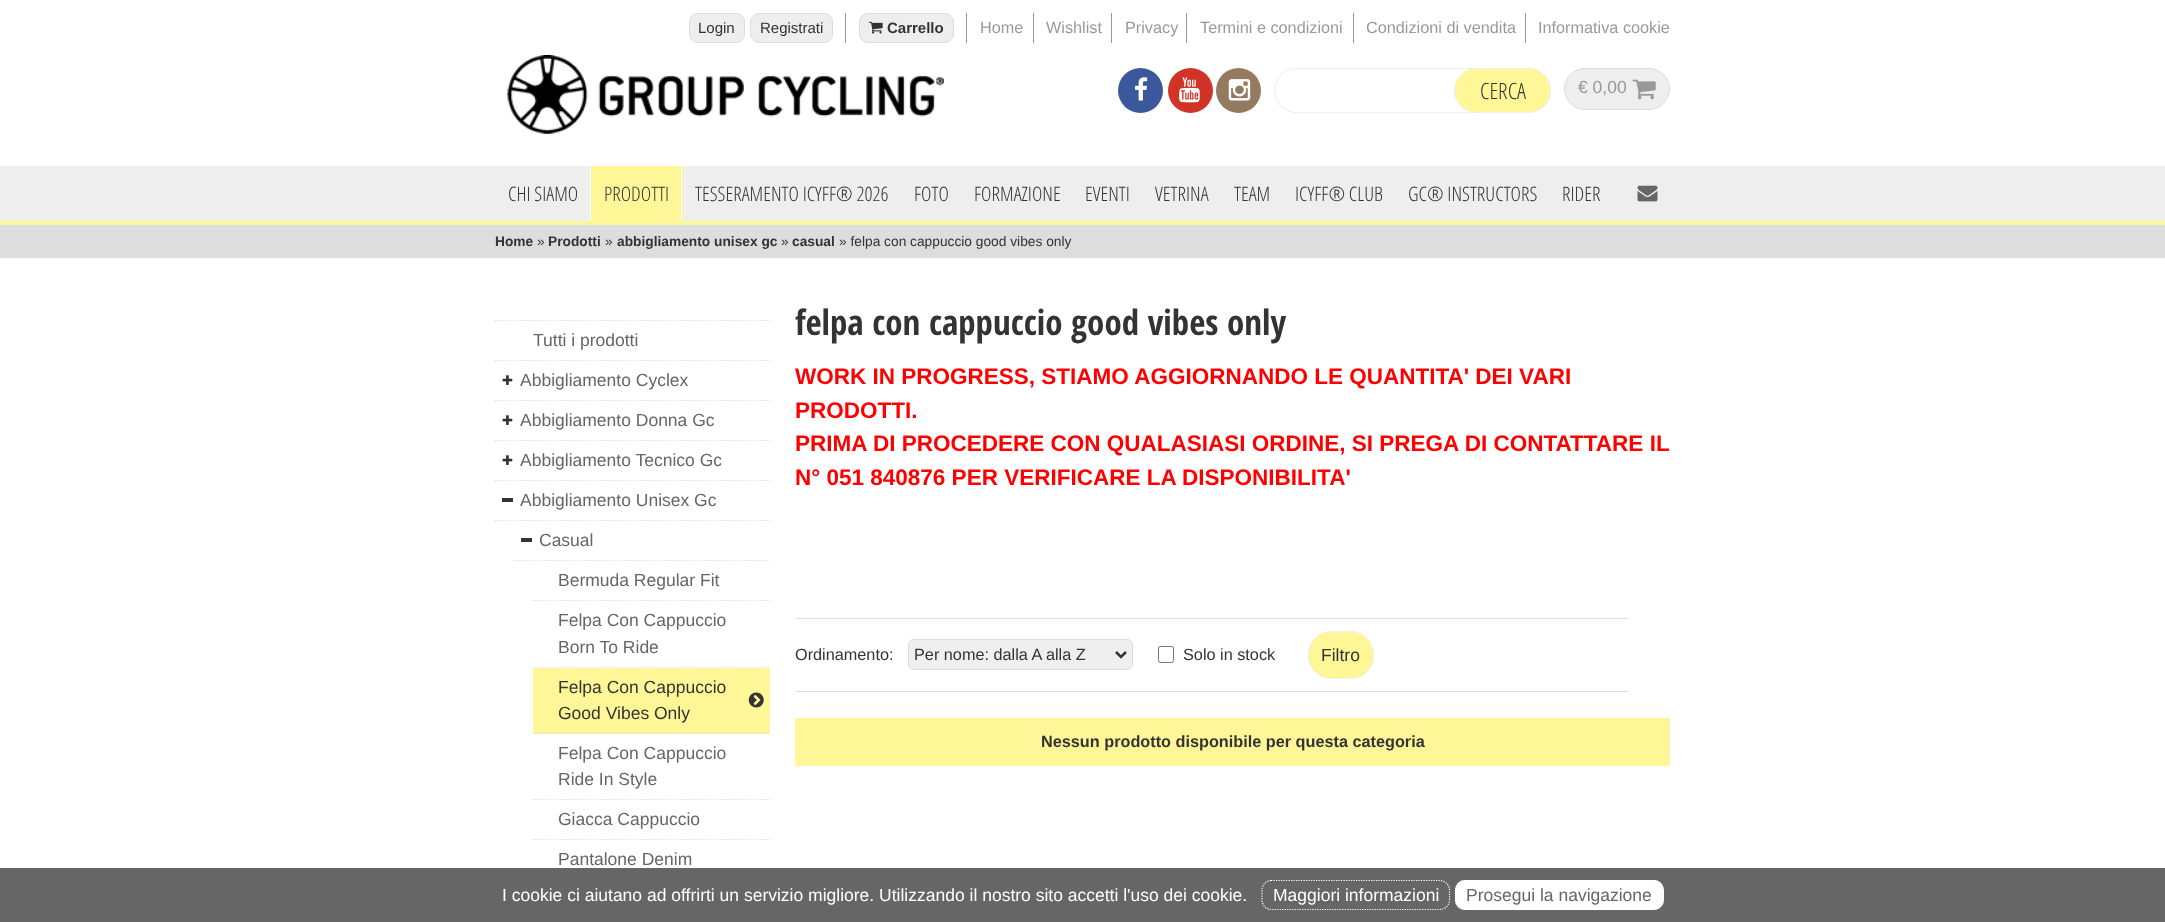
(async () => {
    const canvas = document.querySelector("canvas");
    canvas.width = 2165;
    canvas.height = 922;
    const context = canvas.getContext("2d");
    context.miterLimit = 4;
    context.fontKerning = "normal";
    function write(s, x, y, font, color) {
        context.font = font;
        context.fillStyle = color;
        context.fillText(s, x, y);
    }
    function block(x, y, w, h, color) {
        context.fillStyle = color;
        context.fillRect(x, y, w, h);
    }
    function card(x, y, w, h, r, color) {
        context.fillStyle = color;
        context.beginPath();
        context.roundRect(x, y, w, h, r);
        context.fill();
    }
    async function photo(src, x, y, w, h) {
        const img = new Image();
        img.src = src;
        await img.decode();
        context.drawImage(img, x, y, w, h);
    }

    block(0, 0, 2165, 922, "rgb(221, 221, 221)");
    block(0, 0, 2165, 166, "rgb(255, 255, 255)");
    block(845, 13, 1, 30, "rgb(153, 153, 153)");
    context.fillStyle = "rgb(238, 238, 238)";
    context.beginPath();
    context.roundRect(689.5, 13.5, 55, 29, 8.5);
    context.fill();
    context.strokeStyle = "rgb(221, 221, 221)";
    context.stroke();
    write("Login", 698, 33, "15px Liberation Sans", "rgb(51, 51, 51)");
    context.fillStyle = "rgb(238, 238, 238)";
    context.beginPath();
    context.roundRect(750.5, 13.5, 82, 29, 8.5);
    context.fill();
    context.stroke();
    write("Registrati", 760, 33, "15px Liberation Sans", "rgb(51, 51, 51)");
    block(966, 13, 1, 30, "rgb(153, 153, 153)");
    context.fillStyle = "rgb(238, 238, 238)";
    context.beginPath();
    context.roundRect(859.5, 13.5, 94, 29, 8.5);
    context.fill();
    context.stroke();
    await photo("media/1.png", 868, 21, 15, 13);
    write("Carrello", 887, 33, "bold 15px Liberation Sans", "rgb(51, 51, 51)");
    write("Home", 980, 33, "16.25px Liberation Sans", "rgb(153, 153, 153)");
    block(1033, 13, 1, 30, "rgb(153, 153, 153)");
    write("Wishlist", 1046, 33, "16.25px Liberation Sans", "rgb(153, 153, 153)");
    block(1111, 13, 1, 30, "rgb(153, 153, 153)");
    write("Privacy", 1125, 33, "16.25px Liberation Sans", "rgb(153, 153, 153)");
    block(1186, 13, 1, 30, "rgb(153, 153, 153)");
    write("Termini e condizioni", 1200, 33, "16.25px Liberation Sans", "rgb(153, 153, 153)");
    block(1353, 13, 1, 30, "rgb(153, 153, 153)");
    write("Condizioni di vendita", 1366, 33, "16.25px Liberation Sans", "rgb(153, 153, 153)");
    block(1525, 13, 1, 30, "rgb(153, 153, 153)");
    write("Informativa cookie", 1538, 33, "16.25px Liberation Sans", "rgb(153, 153, 153)");
    await photo("media/2.png", 507, 55, 437, 79);
    context.fillStyle = "rgb(58, 88, 155)";
    context.beginPath();
    context.arc(1140.5, 90.5, 22.5, 0, Math.PI * 2);
    context.fill();
    await photo("media/3.png", 1135, 77, 13, 24);
    context.fillStyle = "rgb(207, 52, 39)";
    context.beginPath();
    context.arc(1190.5, 90.5, 22.5, 0, Math.PI * 2);
    context.fill();
    await photo("media/4.png", 1179, 77, 21, 26);
    context.fillStyle = "rgb(148, 122, 95)";
    context.beginPath();
    context.arc(1238.5, 90.5, 22.5, 0, Math.PI * 2);
    context.fill();
    await photo("media/5.png", 1228, 79, 23, 22);
    context.beginPath();
    context.roundRect(1274.5, 68.5, 276, 44, 22);
    context.strokeStyle = "rgb(238, 238, 238)";
    context.stroke();
    context.fillStyle = "rgb(255, 247, 151)";
    context.beginPath();
    context.roundRect(1454.5, 68.5, 96, 44, 22);
    context.fill();
    context.stroke();
    write("CERCA", 1480, 99, "300 22.5px Open Sans Condensed", "rgb(51, 51, 51)");
    context.fillStyle = "rgb(238, 238, 238)";
    context.beginPath();
    context.roundRect(1564.5, 68.5, 105, 41, 20.5);
    context.fill();
    context.strokeStyle = "rgb(221, 221, 221)";
    context.stroke();
    write("€ 0,00", 1578, 93, "17.5px Liberation Sans", "rgb(153, 153, 153)");
    await photo("media/6.png", 1632, 79, 24, 21);
    block(0, 166, 2165, 55, "rgb(238, 238, 238)");
    block(0, 221, 2165, 4, "rgb(255, 247, 151)");
    write("CHI SIAMO", 508, 201, "300 20px Open Sans Condensed", "rgb(51, 51, 51)");
    block(591, 166, 92, 55, "rgb(255, 247, 151)");
    block(681, 166, 1, 55, "rgb(255, 255, 255)");
    block(590, 166, 1, 55, "rgb(255, 255, 255)");
    write("PRODOTTI", 604, 201, "300 20px Open Sans Condensed", "rgb(51, 51, 51)");
    write("TESSERAMENTO ICYFF® 2026", 695, 201, "300 20px Open Sans Condensed", "rgb(51, 51, 51)");
    write("FOTO", 914, 201, "300 20px Open Sans Condensed", "rgb(51, 51, 51)");
    write("FORMAZIONE", 974, 201, "300 20px Open Sans Condensed", "rgb(51, 51, 51)");
    write("EVENTI", 1085, 201, "300 20px Open Sans Condensed", "rgb(51, 51, 51)");
    write("VETRINA", 1155, 201, "300 20px Open Sans Condensed", "rgb(51, 51, 51)");
    write("TEAM", 1234, 201, "300 20px Open Sans Condensed", "rgb(51, 51, 51)");
    write("ICYFF® CLUB", 1295, 201, "300 20px Open Sans Condensed", "rgb(51, 51, 51)");
    write("GC® INSTRUCTORS", 1408, 201, "300 20px Open Sans Condensed", "rgb(51, 51, 51)");
    write("RIDER", 1562, 201, "300 20px Open Sans Condensed", "rgb(51, 51, 51)");
    await photo("media/7.png", 1637, 185, 21, 17);
    write("Home", 495, 246, "bold 13.75px Liberation Sans", "rgb(51, 51, 51)");
    write("»", 537, 246, "13.75px Liberation Sans", "rgb(51, 51, 51)");
    write("Prodotti", 548, 246, "bold 13.75px Liberation Sans", "rgb(51, 51, 51)");
    write("»", 605, 246, "13.75px Liberation Sans", "rgb(51, 51, 51)");
    write("abbigliamento unisex gc", 617, 246, "bold 13.75px Liberation Sans", "rgb(51, 51, 51)");
    write("»", 781, 246, "13.75px Liberation Sans", "rgb(51, 51, 51)");
    write("casual", 792, 246, "bold 13.75px Liberation Sans", "rgb(51, 51, 51)");
    write("» felpa con cappuccio good vibes only", 839, 246, "13.75px Liberation Sans", "rgb(51, 51, 51)");
    block(0, 258, 2165, 610, "rgb(255, 255, 255)");
    context.beginPath();
    context.moveTo(495, 320.5);
    context.lineTo(770, 320.5);
    context.lineWidth = 1.2;
    context.setLineDash([1.25, 1.25]);
    context.stroke();
    context.beginPath();
    context.moveTo(495, 360.5);
    context.lineTo(770, 360.5);
    context.stroke();
    write("Tutti i prodotti", 533, 346, "17.5px Liberation Sans", "rgb(102, 102, 102)");
    await photo("media/8.png", 502, 375, 11, 10);
    context.beginPath();
    context.moveTo(495, 400.5);
    context.lineTo(770, 400.5);
    context.stroke();
    write("Abbigliamento Cyclex", 520, 386, "17.5px Liberation Sans", "rgb(102, 102, 102)");
    await photo("media/8.png", 502, 415, 11, 10);
    context.beginPath();
    context.moveTo(495, 440.5);
    context.lineTo(770, 440.5);
    context.stroke();
    write("Abbigliamento Donna Gc", 520, 426, "17.5px Liberation Sans", "rgb(102, 102, 102)");
    await photo("media/8.png", 502, 455, 11, 10);
    context.beginPath();
    context.moveTo(495, 480.5);
    context.lineTo(770, 480.5);
    context.stroke();
    write("Abbigliamento Tecnico Gc", 520, 466, "17.5px Liberation Sans", "rgb(102, 102, 102)");
    block(502, 498, 11, 4, "rgb(51, 51, 51)");
    context.beginPath();
    context.moveTo(495, 520.5);
    context.lineTo(770, 520.5);
    context.stroke();
    write("Abbigliamento Unisex Gc", 520, 506, "17.5px Liberation Sans", "rgb(102, 102, 102)");
    block(521, 538, 11, 4, "rgb(51, 51, 51)");
    context.beginPath();
    context.moveTo(514, 560.5);
    context.lineTo(770, 560.5);
    context.stroke();
    write("Casual", 539, 546, "17.5px Liberation Sans", "rgb(102, 102, 102)");
    context.beginPath();
    context.moveTo(532.5, 600.5);
    context.lineTo(770, 600.5);
    context.stroke();
    write("Bermuda Regular Fit", 558, 586, "17.5px Liberation Sans", "rgb(102, 102, 102)");
    context.beginPath();
    context.moveTo(532.5, 667);
    context.lineTo(770, 667);
    context.stroke();
    write("Felpa Con Cappuccio", 558, 626, "17.5px Liberation Sans", "rgb(102, 102, 102)");
    write("Born To Ride", 558, 653, "17.5px Liberation Sans", "rgb(102, 102, 102)");
    block(533, 668, 237, 66, "rgb(255, 247, 151)");
    context.beginPath();
    context.moveTo(532.5, 733);
    context.lineTo(770, 733);
    context.stroke();
    write("Felpa Con Cappuccio", 558, 693, "17.5px Liberation Sans", "rgb(51, 51, 51)");
    await photo("media/9.png", 748, 692, 16, 16);
    write("Good Vibes Only", 558, 719, "17.5px Liberation Sans", "rgb(51, 51, 51)");
    context.beginPath();
    context.moveTo(532.5, 799.5);
    context.lineTo(770, 799.5);
    context.stroke();
    write("Felpa Con Cappuccio", 558, 759, "17.5px Liberation Sans", "rgb(102, 102, 102)");
    write("Ride In Style", 558, 785, "17.5px Liberation Sans", "rgb(102, 102, 102)");
    context.beginPath();
    context.moveTo(532.5, 839.5);
    context.lineTo(770, 839.5);
    context.stroke();
    write("Giacca Cappuccio", 558, 825, "17.5px Liberation Sans", "rgb(102, 102, 102)");
    write("Pantalone Denim", 558, 865, "17.5px Liberation Sans", "rgb(102, 102, 102)");
    write("felpa con cappuccio good vibes only", 795, 335, "bold 35px Open Sans Condensed", "rgb(51, 51, 51)");
    write("WORK IN PROGRESS, STIAMO AGGIORNANDO LE QUANTITA' DEI VARI", 795, 384, "bold 22.5px Liberation Sans", "rgb(255, 0, 0)");
    write("PRODOTTI.", 795, 418, "bold 22.5px Liberation Sans", "rgb(255, 0, 0)");
    write("PRIMA DI PROCEDERE CON QUALASIASI ORDINE, SI PREGA DI CONTATTARE IL", 795, 451, "bold 22.5px Liberation Sans", "rgb(255, 0, 0)");
    write("N° 051 840876 PER VERIFICARE LA DISPONIBILITA'", 795, 485, "bold 22.5px Liberation Sans", "rgb(255, 0, 0)");
    block(795, 618, 834, 1, "rgb(221, 221, 221)");
    block(795, 691, 834, 1, "rgb(221, 221, 221)");
    write("Ordinamento:", 795, 660, "16.25px Liberation Sans", "rgb(51, 51, 51)");
    context.fillStyle = "rgb(239, 239, 239)";
    context.beginPath();
    context.roundRect(908.5, 639.5, 224, 30, 5.5);
    context.fill();
    context.lineWidth = 1;
    context.setLineDash([]);
    context.stroke();
    context.beginPath();
    context.moveTo(1116, 652);
    context.lineTo(1121, 657);
    context.lineTo(1126, 652);
    context.strokeStyle = "rgb(51, 51, 51)";
    context.lineWidth = 2.5;
    context.stroke();
    write("Per nome: dalla A alla Z", 914, 660, "16.25px Liberation Sans", "rgb(51, 51, 51)");
    context.beginPath();
    context.roundRect(1158.5, 646.5, 15, 16, 2);
    context.strokeStyle = "rgb(118, 118, 118)";
    context.lineWidth = 1;
    context.stroke();
    write("Solo in stock", 1183, 660, "16.25px Liberation Sans", "rgb(51, 51, 51)");
    context.fillStyle = "rgb(255, 247, 151)";
    context.beginPath();
    context.roundRect(1308.5, 631.5, 65, 47, 22.5);
    context.fill();
    context.strokeStyle = "rgb(238, 238, 238)";
    context.stroke();
    write("Filtro", 1321, 661, "17.5px Liberation Sans", "rgb(51, 51, 51)");
    block(795, 718, 875, 48, "rgb(255, 247, 151)");
    write("Nessun prodotto disponibile per questa categoria", 1041, 747, "bold 16.25px Liberation Sans", "rgb(51, 51, 51)");
    block(0, 868, 2165, 54, "rgb(102, 102, 102)");
    write("I cookie ci aiutano ad offrirti un servizio migliore. Utilizzando il nostro sito accetti l'uso dei cookie.", 502, 901, "17.5px Liberation Sans", "rgb(255, 255, 255)");
    context.beginPath();
    context.moveTo(1271, 880.5);
    context.lineTo(1440, 880.5);
    context.bezierCurveTo(1445, 880.5, 1449.5, 885, 1449.5, 890);
    context.lineTo(1449.5, 900);
    context.bezierCurveTo(1449.5, 905, 1445, 909.5, 1440, 909.5);
    context.lineTo(1271, 909.5);
    context.bezierCurveTo(1266, 909.5, 1262, 905, 1262, 900);
    context.lineTo(1262, 890);
    context.bezierCurveTo(1262, 885, 1266, 880.5, 1271, 880.5);
    context.closePath();
    context.strokeStyle = "rgb(255, 255, 255)";
    context.lineWidth = 1.2;
    context.setLineDash([1.25, 1.25]);
    context.stroke();
    write("Maggiori informazioni", 1273, 901, "17.5px Liberation Sans", "rgb(255, 255, 255)");
    card(1455, 880, 209, 30, 10, "rgb(255, 255, 255)");
    context.beginPath();
    context.moveTo(1465, 880.5);
    context.lineTo(1654, 880.5);
    context.bezierCurveTo(1659, 880.5, 1663, 885, 1663, 890);
    context.lineTo(1663, 900);
    context.bezierCurveTo(1663, 905, 1659, 909.5, 1654, 909.5);
    context.lineTo(1465, 909.5);
    context.bezierCurveTo(1460, 909.5, 1455.5, 905, 1455.5, 900);
    context.lineTo(1455.5, 890);
    context.bezierCurveTo(1455.5, 885, 1460, 880.5, 1465, 880.5);
    context.closePath();
    context.stroke();
    write("Prosegui la navigazione", 1466, 901, "17.5px Liberation Sans", "rgb(102, 102, 102)");
})();
